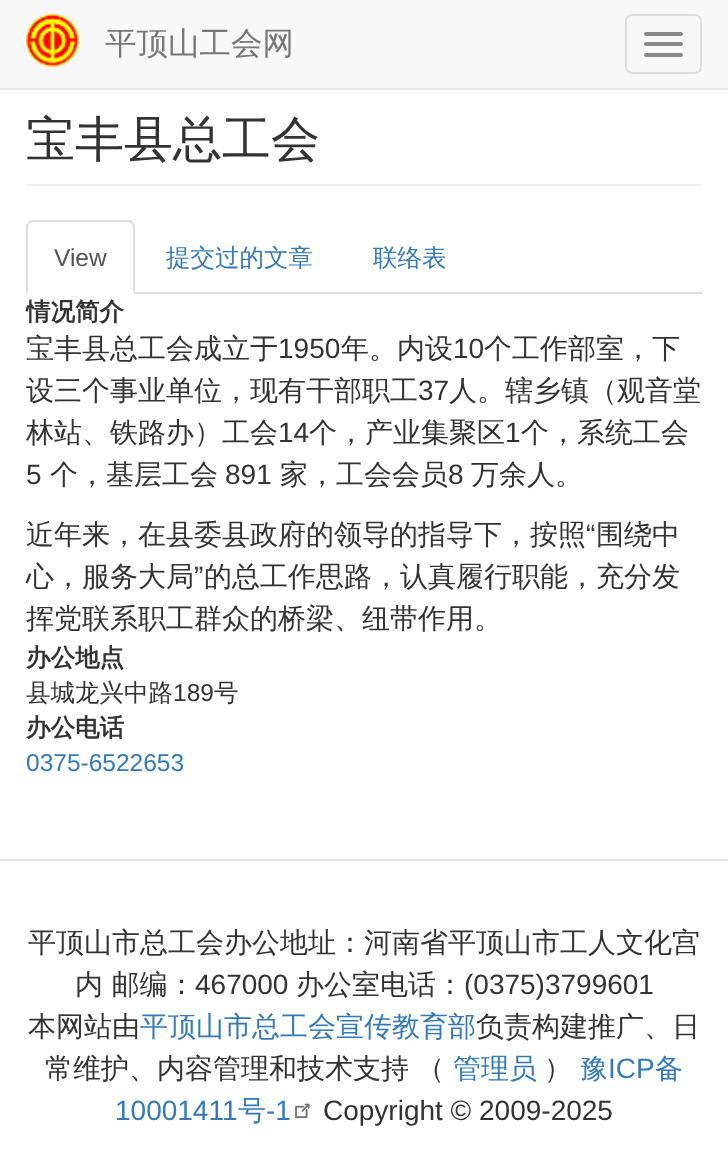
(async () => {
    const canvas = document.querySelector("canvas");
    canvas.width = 728;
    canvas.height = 1165;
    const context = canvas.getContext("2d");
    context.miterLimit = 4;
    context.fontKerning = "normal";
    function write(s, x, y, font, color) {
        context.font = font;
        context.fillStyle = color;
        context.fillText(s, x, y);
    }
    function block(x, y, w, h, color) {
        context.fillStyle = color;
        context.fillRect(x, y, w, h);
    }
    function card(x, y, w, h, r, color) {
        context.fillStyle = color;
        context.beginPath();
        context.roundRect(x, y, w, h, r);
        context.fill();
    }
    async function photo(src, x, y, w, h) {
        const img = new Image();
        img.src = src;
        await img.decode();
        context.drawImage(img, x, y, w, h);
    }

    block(0, 0, 728, 1165, "rgb(255, 255, 255)");
    block(0, 0, 728, 88, "rgb(248, 248, 248)");
    block(0, 88, 728, 2, "rgb(231, 231, 231)");
    await photo("media/1.png", 26, 14, 53, 53);
    write("平顶山工会网", 105, 54, "500 31.5px WenQuanYi Zen Hei", "rgb(119, 119, 119)");
    context.beginPath();
    context.roundRect(626, 15, 75, 58, 6);
    context.strokeStyle = "rgb(221, 221, 221)";
    context.lineWidth = 2;
    context.stroke();
    card(644, 32, 39, 4, 2, "rgb(136, 136, 136)");
    card(644, 42, 39, 4, 2, "rgb(136, 136, 136)");
    card(644, 53, 39, 4, 2, "rgb(136, 136, 136)");
    block(26, 184, 676, 2, "rgb(238, 238, 238)");
    write("宝丰县总工会", 26, 156, "500 49px WenQuanYi Zen Hei", "rgb(51, 51, 51)");
    block(135, 292, 567, 2, "rgb(221, 221, 221)");
    context.beginPath();
    context.moveTo(33, 222);
    context.bezierCurveTo(32, 222, 30, 223, 29, 224);
    context.lineTo(28, 222);
    context.lineTo(31, 220);
    context.lineTo(130, 220);
    context.lineTo(133, 222);
    context.lineTo(132, 224);
    context.bezierCurveTo(131, 223, 129, 222, 128, 222);
    context.closePath();
    context.fill();
    context.beginPath();
    context.moveTo(135, 226);
    context.lineTo(135, 294);
    context.lineTo(133, 292);
    context.lineTo(133, 228);
    context.bezierCurveTo(133, 226, 132, 225, 132, 224);
    context.lineTo(133, 222);
    context.closePath();
    context.fill();
    context.beginPath();
    context.moveTo(26, 294);
    context.lineTo(26, 226);
    context.lineTo(28, 222);
    context.lineTo(29, 224);
    context.bezierCurveTo(29, 225, 28, 226, 28, 228);
    context.lineTo(28, 292);
    context.closePath();
    context.fill();
    write("View", 54, 266, "24.5px Liberation Sans", "rgb(85, 85, 85)");
    write("提交过的文章", 166, 266, "500 24.5px WenQuanYi Zen Hei", "rgb(51, 122, 183)");
    write("联络表", 373, 266, "500 24.5px WenQuanYi Zen Hei", "rgb(51, 122, 183)");
    write("情况简介", 26, 320, "bold 24.5px WenQuanYi Zen Hei", "rgb(51, 51, 51)");
    write("宝丰县总工会成立于", 26, 358, "500 28px WenQuanYi Zen Hei", "rgb(51, 51, 51)");
    write("1950", 278, 358, "28px Liberation Sans", "rgb(51, 51, 51)");
    write("年。内设", 341, 358, "500 28px WenQuanYi Zen Hei", "rgb(51, 51, 51)");
    write("10", 453, 358, "28px Liberation Sans", "rgb(51, 51, 51)");
    write("个工作部室，下", 484, 358, "500 28px WenQuanYi Zen Hei", "rgb(51, 51, 51)");
    write("设三个事业单位，现有干部职工", 26, 400, "500 28px WenQuanYi Zen Hei", "rgb(51, 51, 51)");
    write("37", 418, 400, "28px Liberation Sans", "rgb(51, 51, 51)");
    write("人。辖乡镇（观音堂", 449, 400, "500 28px WenQuanYi Zen Hei", "rgb(51, 51, 51)");
    write("林站、铁路办）工会", 26, 442, "500 28px WenQuanYi Zen Hei", "rgb(51, 51, 51)");
    write("14", 278, 442, "28px Liberation Sans", "rgb(51, 51, 51)");
    write("个，产业集聚区", 309, 442, "500 28px WenQuanYi Zen Hei", "rgb(51, 51, 51)");
    write("1", 505, 442, "28px Liberation Sans", "rgb(51, 51, 51)");
    write("个，系统工会", 521, 442, "500 28px WenQuanYi Zen Hei", "rgb(51, 51, 51)");
    write("5", 26, 484, "28px Liberation Sans", "rgb(51, 51, 51)");
    write("个，基层工会", 50, 484, "500 28px WenQuanYi Zen Hei", "rgb(51, 51, 51)");
    write("891", 225, 484, "28px Liberation Sans", "rgb(51, 51, 51)");
    write("家，工会会员", 280, 484, "500 28px WenQuanYi Zen Hei", "rgb(51, 51, 51)");
    write("8", 448, 484, "28px Liberation Sans", "rgb(51, 51, 51)");
    write("万余人。", 471, 484, "500 28px WenQuanYi Zen Hei", "rgb(51, 51, 51)");
    write("近年来，在县委县政府的领导的指导下，按照", 26, 544, "500 28px WenQuanYi Zen Hei", "rgb(51, 51, 51)");
    write("“", 586, 544, "28px Liberation Sans", "rgb(51, 51, 51)");
    write("围绕中", 596, 544, "500 28px WenQuanYi Zen Hei", "rgb(51, 51, 51)");
    write("心，服务大局", 26, 586, "500 28px WenQuanYi Zen Hei", "rgb(51, 51, 51)");
    write("”", 194, 586, "28px Liberation Sans", "rgb(51, 51, 51)");
    write("的总工作思路，认真履行职能，充分发", 204, 586, "500 28px WenQuanYi Zen Hei", "rgb(51, 51, 51)");
    write("挥党联系职工群众的桥梁、纽带作用。", 26, 628, "500 28px WenQuanYi Zen Hei", "rgb(51, 51, 51)");
    write("办公地点", 26, 666, "bold 24.5px WenQuanYi Zen Hei", "rgb(51, 51, 51)");
    write("县城龙兴中路", 26, 701, "500 24.5px WenQuanYi Zen Hei", "rgb(51, 51, 51)");
    write("189", 173, 701, "24.5px Liberation Sans", "rgb(51, 51, 51)");
    write("号", 214, 701, "500 24.5px WenQuanYi Zen Hei", "rgb(51, 51, 51)");
    write("办公电话", 26, 736, "bold 24.5px WenQuanYi Zen Hei", "rgb(51, 51, 51)");
    write("0375-6522653", 26, 771, "24.5px Liberation Sans", "rgb(51, 122, 183)");
    block(0, 859, 728, 2, "rgb(229, 229, 229)");
    write("平顶山市总工会办公地址：河南省平顶山市工人文化宫", 28, 952, "500 28px WenQuanYi Zen Hei", "rgb(51, 51, 51)");
    write("内 邮编：", 75, 994, "500 28px WenQuanYi Zen Hei", "rgb(51, 51, 51)");
    write("467000", 195, 994, "28px Liberation Sans", "rgb(51, 51, 51)");
    write("办公室电话：", 296, 994, "500 28px WenQuanYi Zen Hei", "rgb(51, 51, 51)");
    write("(0375)3799601", 464, 994, "28px Liberation Sans", "rgb(51, 51, 51)");
    write("本网站由", 28, 1036, "500 28px WenQuanYi Zen Hei", "rgb(51, 51, 51)");
    write("平顶山市总工会宣传教育部", 140, 1036, "500 28px WenQuanYi Zen Hei", "rgb(51, 122, 183)");
    write("负责构建推广、日", 476, 1036, "500 28px WenQuanYi Zen Hei", "rgb(51, 51, 51)");
    context.wordSpacing = "-1px";
    write("常维护、内容管理和技术支持 （", 45, 1078, "500 28px WenQuanYi Zen Hei", "rgb(51, 51, 51)");
    context.wordSpacing = "0px";
    write("管理员", 453, 1078, "500 28px WenQuanYi Zen Hei", "rgb(51, 122, 183)");
    write("）", 544, 1078, "500 28px WenQuanYi Zen Hei", "rgb(51, 51, 51)");
    write("豫", 580, 1078, "500 28px WenQuanYi Zen Hei", "rgb(51, 122, 183)");
    write("ICP", 608, 1078, "28px Liberation Sans", "rgb(51, 122, 183)");
    write("备", 655, 1078, "500 28px WenQuanYi Zen Hei", "rgb(51, 122, 183)");
    write("10001411", 115, 1120, "28px Liberation Sans", "rgb(51, 122, 183)");
    write("号", 238, 1120, "500 28px WenQuanYi Zen Hei", "rgb(51, 122, 183)");
    write("-1", 266, 1120, "28px Liberation Sans", "rgb(51, 122, 183)");
    await photo("media/2.png", 295, 1103, 15, 16);
    write("Copyright © 2009-2025", 323, 1120, "28px Liberation Sans", "rgb(51, 51, 51)");
})();
